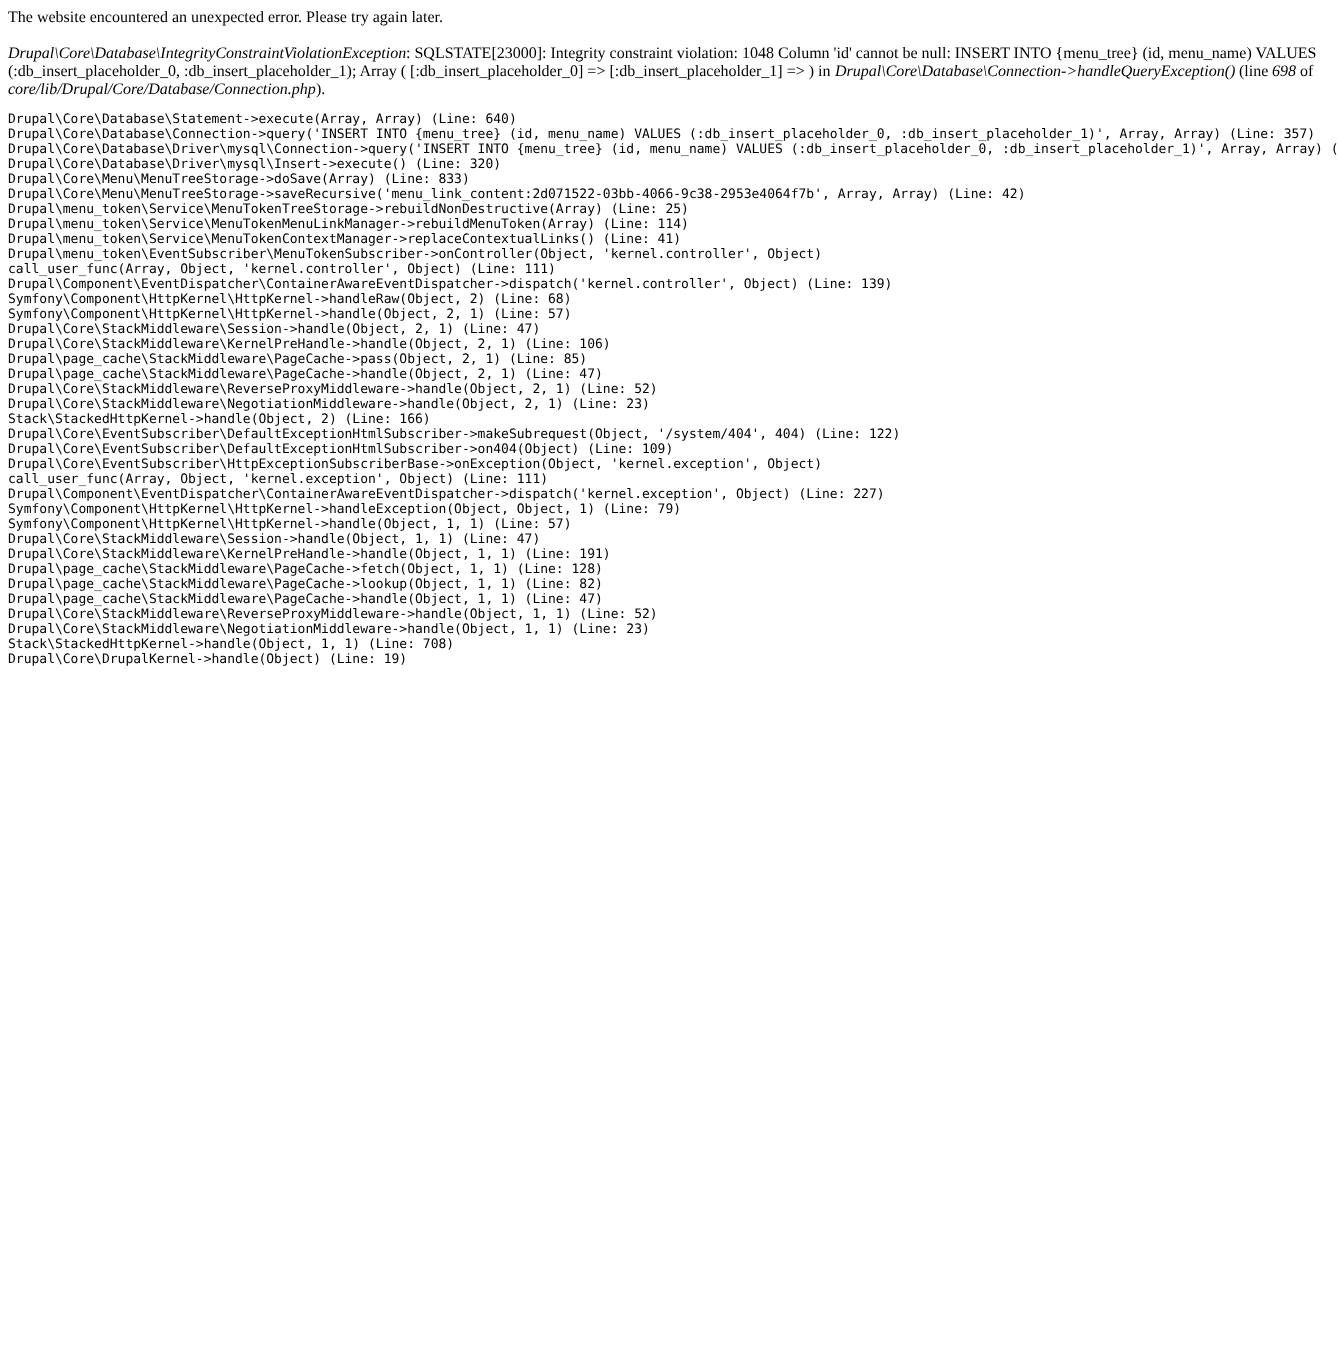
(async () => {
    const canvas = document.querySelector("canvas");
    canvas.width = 1340;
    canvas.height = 1369;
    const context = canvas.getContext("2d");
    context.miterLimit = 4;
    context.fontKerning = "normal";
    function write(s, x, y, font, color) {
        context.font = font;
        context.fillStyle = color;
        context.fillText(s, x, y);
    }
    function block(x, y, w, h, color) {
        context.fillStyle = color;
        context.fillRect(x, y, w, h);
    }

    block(0, 0, 1340, 1369, "rgb(255, 255, 255)");
    write("The website encountered an unexpected error. Please try again later.", 8, 22, "16px Liberation Serif", "rgb(0, 0, 0)");
    write("Drupal\\Core\\Database\\IntegrityConstraintViolationException", 8, 58, "italic 16px Liberation Serif", "rgb(0, 0, 0)");
    write(": SQLSTATE[23000]: Integrity constraint violation: 1048 Column 'id' cannot be null: INSERT INTO {menu_tree} (id, menu_name) VALUES", 406, 58, "16px Liberation Serif", "rgb(0, 0, 0)");
    write("(:db_insert_placeholder_0, :db_insert_placeholder_1); Array ( [:db_insert_placeholder_0] => [:db_insert_placeholder_1] => ) in", 8, 76, "16px Liberation Serif", "rgb(0, 0, 0)");
    write("Drupal\\Core\\Database\\Connection->handleQueryException()", 835, 76, "italic 16px Liberation Serif", "rgb(0, 0, 0)");
    write("(line", 1239, 76, "16px Liberation Serif", "rgb(0, 0, 0)");
    write("698", 1272, 76, "italic 16px Liberation Serif", "rgb(0, 0, 0)");
    write("of", 1300, 76, "16px Liberation Serif", "rgb(0, 0, 0)");
    write("core/lib/Drupal/Core/Database/Connection.php", 8, 94, "italic 16px Liberation Serif", "rgb(0, 0, 0)");
    write(").", 316, 94, "16px Liberation Serif", "rgb(0, 0, 0)");
    write("Drupal\\Core\\Database\\Statement->execute(Array, Array) (Line: 640)", 8, 123, "13px DejaVu Sans Mono", "rgb(0, 0, 0)");
    write("Drupal\\Core\\Database\\Connection->query('INSERT INTO {menu_tree} (id, menu_name) VALUES (:db_insert_placeholder_0, :db_insert_placeholder_1)', Array, Array) (Line: 357)", 8, 138, "13px DejaVu Sans Mono", "rgb(0, 0, 0)");
    write("Drupal\\Core\\Database\\Driver\\mysql\\Connection->query('INSERT INTO {menu_tree} (id, menu_name) VALUES (:db_insert_placeholder_0, :db_insert_placeholder_1)', Array, Array) (", 8, 153, "13px DejaVu Sans Mono", "rgb(0, 0, 0)");
    write("Drupal\\Core\\Database\\Driver\\mysql\\Insert->execute() (Line: 320)", 8, 168, "13px DejaVu Sans Mono", "rgb(0, 0, 0)");
    write("Drupal\\Core\\Menu\\MenuTreeStorage->doSave(Array) (Line: 833)", 8, 183, "13px DejaVu Sans Mono", "rgb(0, 0, 0)");
    write("Drupal\\Core\\Menu\\MenuTreeStorage->saveRecursive('menu_link_content:2d071522-03bb-4066-9c38-2953e4064f7b', Array, Array) (Line: 42)", 8, 198, "13px DejaVu Sans Mono", "rgb(0, 0, 0)");
    write("Drupal\\menu_token\\Service\\MenuTokenTreeStorage->rebuildNonDestructive(Array) (Line: 25)", 8, 213, "13px DejaVu Sans Mono", "rgb(0, 0, 0)");
    write("Drupal\\menu_token\\Service\\MenuTokenMenuLinkManager->rebuildMenuToken(Array) (Line: 114)", 8, 228, "13px DejaVu Sans Mono", "rgb(0, 0, 0)");
    write("Drupal\\menu_token\\Service\\MenuTokenContextManager->replaceContextualLinks() (Line: 41)", 8, 243, "13px DejaVu Sans Mono", "rgb(0, 0, 0)");
    write("Drupal\\menu_token\\EventSubscriber\\MenuTokenSubscriber->onController(Object, 'kernel.controller', Object)", 8, 258, "13px DejaVu Sans Mono", "rgb(0, 0, 0)");
    write("call_user_func(Array, Object, 'kernel.controller', Object) (Line: 111)", 8, 273, "13px DejaVu Sans Mono", "rgb(0, 0, 0)");
    write("Drupal\\Component\\EventDispatcher\\ContainerAwareEventDispatcher->dispatch('kernel.controller', Object) (Line: 139)", 8, 288, "13px DejaVu Sans Mono", "rgb(0, 0, 0)");
    write("Symfony\\Component\\HttpKernel\\HttpKernel->handleRaw(Object, 2) (Line: 68)", 8, 303, "13px DejaVu Sans Mono", "rgb(0, 0, 0)");
    write("Symfony\\Component\\HttpKernel\\HttpKernel->handle(Object, 2, 1) (Line: 57)", 8, 318, "13px DejaVu Sans Mono", "rgb(0, 0, 0)");
    write("Drupal\\Core\\StackMiddleware\\Session->handle(Object, 2, 1) (Line: 47)", 8, 333, "13px DejaVu Sans Mono", "rgb(0, 0, 0)");
    write("Drupal\\Core\\StackMiddleware\\KernelPreHandle->handle(Object, 2, 1) (Line: 106)", 8, 348, "13px DejaVu Sans Mono", "rgb(0, 0, 0)");
    write("Drupal\\page_cache\\StackMiddleware\\PageCache->pass(Object, 2, 1) (Line: 85)", 8, 363, "13px DejaVu Sans Mono", "rgb(0, 0, 0)");
    write("Drupal\\page_cache\\StackMiddleware\\PageCache->handle(Object, 2, 1) (Line: 47)", 8, 378, "13px DejaVu Sans Mono", "rgb(0, 0, 0)");
    write("Drupal\\Core\\StackMiddleware\\ReverseProxyMiddleware->handle(Object, 2, 1) (Line: 52)", 8, 393, "13px DejaVu Sans Mono", "rgb(0, 0, 0)");
    write("Drupal\\Core\\StackMiddleware\\NegotiationMiddleware->handle(Object, 2, 1) (Line: 23)", 8, 408, "13px DejaVu Sans Mono", "rgb(0, 0, 0)");
    write("Stack\\StackedHttpKernel->handle(Object, 2) (Line: 166)", 8, 423, "13px DejaVu Sans Mono", "rgb(0, 0, 0)");
    write("Drupal\\Core\\EventSubscriber\\DefaultExceptionHtmlSubscriber->makeSubrequest(Object, '/system/404', 404) (Line: 122)", 8, 438, "13px DejaVu Sans Mono", "rgb(0, 0, 0)");
    write("Drupal\\Core\\EventSubscriber\\DefaultExceptionHtmlSubscriber->on404(Object) (Line: 109)", 8, 453, "13px DejaVu Sans Mono", "rgb(0, 0, 0)");
    write("Drupal\\Core\\EventSubscriber\\HttpExceptionSubscriberBase->onException(Object, 'kernel.exception', Object)", 8, 468, "13px DejaVu Sans Mono", "rgb(0, 0, 0)");
    write("call_user_func(Array, Object, 'kernel.exception', Object) (Line: 111)", 8, 483, "13px DejaVu Sans Mono", "rgb(0, 0, 0)");
    write("Drupal\\Component\\EventDispatcher\\ContainerAwareEventDispatcher->dispatch('kernel.exception', Object) (Line: 227)", 8, 498, "13px DejaVu Sans Mono", "rgb(0, 0, 0)");
    write("Symfony\\Component\\HttpKernel\\HttpKernel->handleException(Object, Object, 1) (Line: 79)", 8, 513, "13px DejaVu Sans Mono", "rgb(0, 0, 0)");
    write("Symfony\\Component\\HttpKernel\\HttpKernel->handle(Object, 1, 1) (Line: 57)", 8, 528, "13px DejaVu Sans Mono", "rgb(0, 0, 0)");
    write("Drupal\\Core\\StackMiddleware\\Session->handle(Object, 1, 1) (Line: 47)", 8, 543, "13px DejaVu Sans Mono", "rgb(0, 0, 0)");
    write("Drupal\\Core\\StackMiddleware\\KernelPreHandle->handle(Object, 1, 1) (Line: 191)", 8, 558, "13px DejaVu Sans Mono", "rgb(0, 0, 0)");
    write("Drupal\\page_cache\\StackMiddleware\\PageCache->fetch(Object, 1, 1) (Line: 128)", 8, 573, "13px DejaVu Sans Mono", "rgb(0, 0, 0)");
    write("Drupal\\page_cache\\StackMiddleware\\PageCache->lookup(Object, 1, 1) (Line: 82)", 8, 588, "13px DejaVu Sans Mono", "rgb(0, 0, 0)");
    write("Drupal\\page_cache\\StackMiddleware\\PageCache->handle(Object, 1, 1) (Line: 47)", 8, 603, "13px DejaVu Sans Mono", "rgb(0, 0, 0)");
    write("Drupal\\Core\\StackMiddleware\\ReverseProxyMiddleware->handle(Object, 1, 1) (Line: 52)", 8, 618, "13px DejaVu Sans Mono", "rgb(0, 0, 0)");
    write("Drupal\\Core\\StackMiddleware\\NegotiationMiddleware->handle(Object, 1, 1) (Line: 23)", 8, 633, "13px DejaVu Sans Mono", "rgb(0, 0, 0)");
    write("Stack\\StackedHttpKernel->handle(Object, 1, 1) (Line: 708)", 8, 648, "13px DejaVu Sans Mono", "rgb(0, 0, 0)");
    write("Drupal\\Core\\DrupalKernel->handle(Object) (Line: 19)", 8, 663, "13px DejaVu Sans Mono", "rgb(0, 0, 0)");
})();
